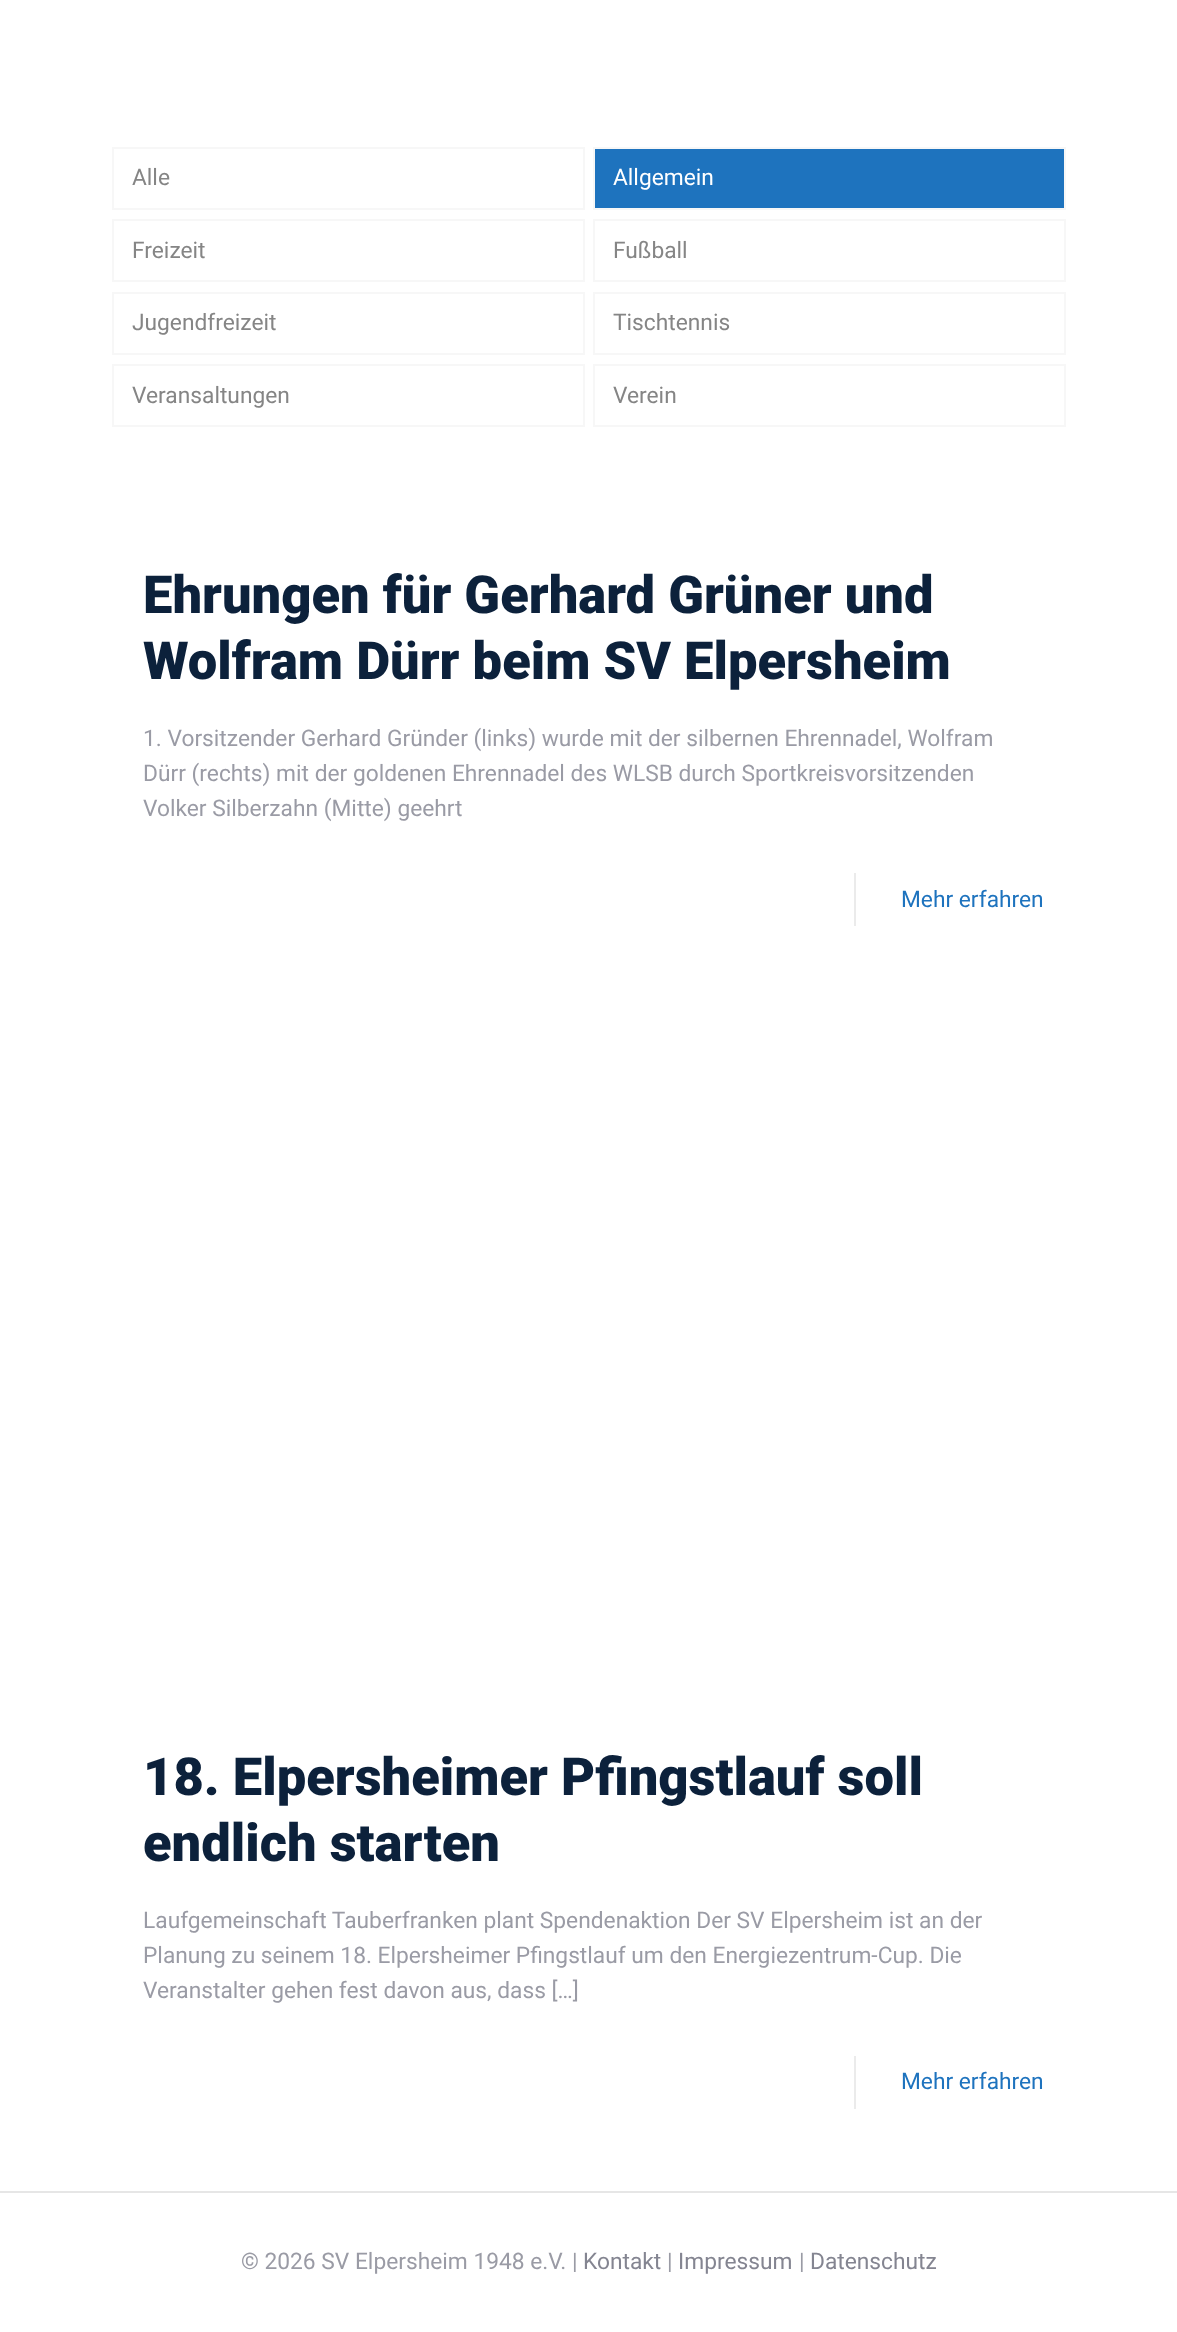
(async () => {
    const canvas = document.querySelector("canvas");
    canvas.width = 1177;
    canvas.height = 2332;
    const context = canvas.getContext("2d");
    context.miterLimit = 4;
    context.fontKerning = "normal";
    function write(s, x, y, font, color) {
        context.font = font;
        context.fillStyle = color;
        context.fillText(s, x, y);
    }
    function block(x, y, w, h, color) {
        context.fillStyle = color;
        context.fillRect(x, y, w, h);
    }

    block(0, 0, 1177, 2332, "rgb(255, 255, 255)");
    context.strokeStyle = "rgb(247, 247, 247)";
    context.lineWidth = 2;
    context.strokeRect(113, 148, 471, 61);
    write("Alle", 132, 185, "22.75px Roboto", "rgb(133, 133, 133)");
    context.fillStyle = "rgb(30, 115, 190)";
    context.beginPath();
    context.rect(594, 148, 471, 61);
    context.fill();
    context.stroke();
    write("Allgemein", 613, 185, "22.75px Roboto", "rgb(255, 255, 255)");
    context.strokeRect(113, 220, 471, 61);
    write("Freizeit", 132, 258, "22.75px Roboto", "rgb(133, 133, 133)");
    context.strokeRect(594, 220, 471, 61);
    write("Fußball", 613, 258, "22.75px Roboto", "rgb(133, 133, 133)");
    context.strokeRect(113, 293, 471, 61);
    write("Jugendfreizeit", 132, 330, "22.75px Roboto", "rgb(133, 133, 133)");
    context.strokeRect(594, 293, 471, 61);
    write("Tischtennis", 613, 330, "22.75px Roboto", "rgb(133, 133, 133)");
    context.strokeRect(113, 365, 471, 61);
    write("Veransaltungen", 132, 403, "22.75px Roboto", "rgb(133, 133, 133)");
    context.strokeRect(594, 365, 471, 61);
    write("Verein", 613, 403, "22.75px Roboto", "rgb(133, 133, 133)");
    write("Ehrungen für Gerhard Grüner und", 143, 613, "900 52.5px Roboto", "rgb(12, 33, 59)");
    write("Wolfram Dürr beim SV Elpersheim", 143, 679, "900 52.5px Roboto", "rgb(12, 33, 59)");
    write("1. Vorsitzender Gerhard Gründer (links) wurde mit der silbernen Ehrennadel, Wolfram", 143, 746, "22.75px Roboto", "rgb(154, 155, 165)");
    write("Dürr (rechts) mit der goldenen Ehrennadel des WLSB durch Sportkreisvorsitzenden", 143, 781, "22.75px Roboto", "rgb(154, 155, 165)");
    write("Volker Silberzahn (Mitte) geehrt", 143, 816, "22.75px Roboto", "rgb(154, 155, 165)");
    block(854, 873, 2, 53, "rgb(235, 235, 235)");
    write("Mehr erfahren", 901, 907, "22.75px Roboto", "rgb(30, 115, 190)");
    write("18. Elpersheimer Pfingstlauf soll", 143, 1795, "900 52.5px Roboto", "rgb(12, 33, 59)");
    write("endlich starten", 143, 1861, "900 52.5px Roboto", "rgb(12, 33, 59)");
    write("Laufgemeinschaft Tauberfranken plant Spendenaktion Der SV Elpersheim ist an der", 143, 1928, "22.75px Roboto", "rgb(154, 155, 165)");
    write("Planung zu seinem 18. Elpersheimer Pfingstlauf um den Energiezentrum-Cup. Die", 143, 1963, "22.75px Roboto", "rgb(154, 155, 165)");
    write("Veranstalter gehen fest davon aus, dass […]", 143, 1998, "22.75px Roboto", "rgb(154, 155, 165)");
    block(854, 2056, 2, 53, "rgb(235, 235, 235)");
    write("Mehr erfahren", 901, 2089, "22.75px Roboto", "rgb(30, 115, 190)");
    block(0, 2191, 1177, 2, "rgb(230, 230, 230)");
    write("© 2026 SV Elpersheim 1948 e.V. |", 241, 2269, "22.75px Roboto", "rgb(154, 155, 165)");
    write("Kontakt", 583, 2269, "22.75px Roboto", "rgb(132, 133, 145)");
    write("|", 667, 2269, "22.75px Roboto", "rgb(154, 155, 165)");
    write("Impressum", 678, 2269, "22.75px Roboto", "rgb(132, 133, 145)");
    write("|", 799, 2269, "22.75px Roboto", "rgb(154, 155, 165)");
    write("Datenschutz", 810, 2269, "22.75px Roboto", "rgb(132, 133, 145)");
})();
